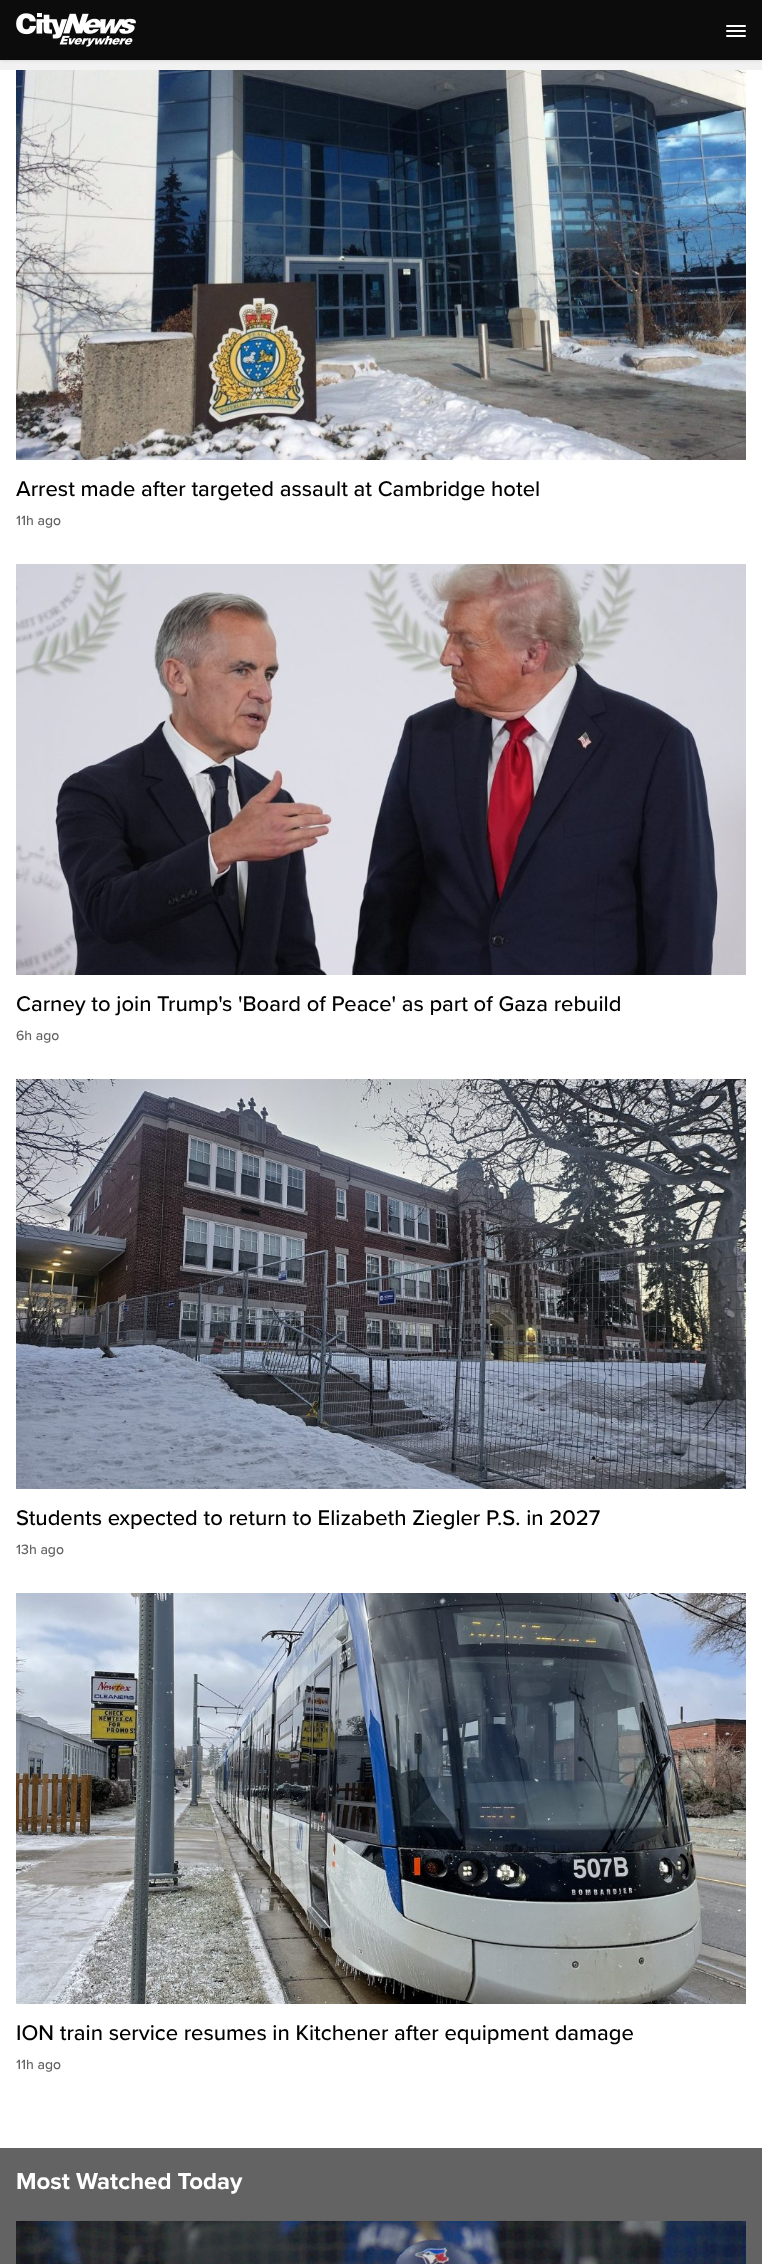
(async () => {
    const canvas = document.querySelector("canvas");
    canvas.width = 762;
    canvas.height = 2264;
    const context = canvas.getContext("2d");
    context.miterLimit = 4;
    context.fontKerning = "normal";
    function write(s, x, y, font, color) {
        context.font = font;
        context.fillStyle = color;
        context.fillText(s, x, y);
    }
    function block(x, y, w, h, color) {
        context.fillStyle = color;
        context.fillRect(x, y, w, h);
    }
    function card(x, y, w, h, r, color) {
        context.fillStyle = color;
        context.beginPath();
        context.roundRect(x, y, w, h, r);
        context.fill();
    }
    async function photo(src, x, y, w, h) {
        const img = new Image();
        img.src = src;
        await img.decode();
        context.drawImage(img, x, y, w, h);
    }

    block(0, 0, 762, 2264, "rgb(255, 255, 255)");
    block(0, 60, 762, 10, "rgb(242, 242, 242)");
    context.fillStyle = "rgba(0, 0, 0, 0.15)";
    context.filter = "blur(2px)";
    context.beginPath();
    context.rect(0, 0, 762, 60);
    context.fill();
    context.filter = "none";
    block(0, 0, 762, 60, "rgb(12, 12, 12)");
    await photo("media/1.png", 16, 13, 120, 34);
    card(726, 30, 20, 2, 1, "rgb(255, 255, 255)");
    card(726, 25, 20, 2, 1, "rgb(255, 255, 255)");
    card(726, 35, 20, 2, 1, "rgb(255, 255, 255)");
    await photo("media/2.png", 16, 70, 730, 390);
    write("Arrest made after targeted assault at Cambridge hotel", 16, 496, "500 22px Proxima Nova", "rgb(0, 0, 0)");
    write("11h ago", 16, 525, "500 14px Proxima Nova", "rgb(99, 99, 99)");
    await photo("media/3.png", 16, 564, 730, 411);
    write("Carney to join Trump's 'Board of Peace' as part of Gaza rebuild", 16, 1011, "500 22px Proxima Nova", "rgb(0, 0, 0)");
    write("6h ago", 16, 1040, "500 14px Proxima Nova", "rgb(99, 99, 99)");
    await photo("media/4.png", 16, 1079, 730, 410);
    write("Students expected to return to Elizabeth Ziegler P.S. in 2027", 16, 1525, "500 22px Proxima Nova", "rgb(0, 0, 0)");
    write("13h ago", 16, 1554, "500 14px Proxima Nova", "rgb(99, 99, 99)");
    await photo("media/5.png", 16, 1593, 730, 411);
    write("ION train service resumes in Kitchener after equipment damage", 16, 2040, "500 22px Proxima Nova", "rgb(0, 0, 0)");
    write("11h ago", 16, 2069, "500 14px Proxima Nova", "rgb(99, 99, 99)");
    block(0, 2148, 762, 116, "rgb(99, 99, 99)");
    write("Most Watched Today", 16, 2189, "bold 24px Proxima Nova", "rgb(255, 255, 255)");
    await photo("media/6.png", 16, 2221, 730, 43);
})();
